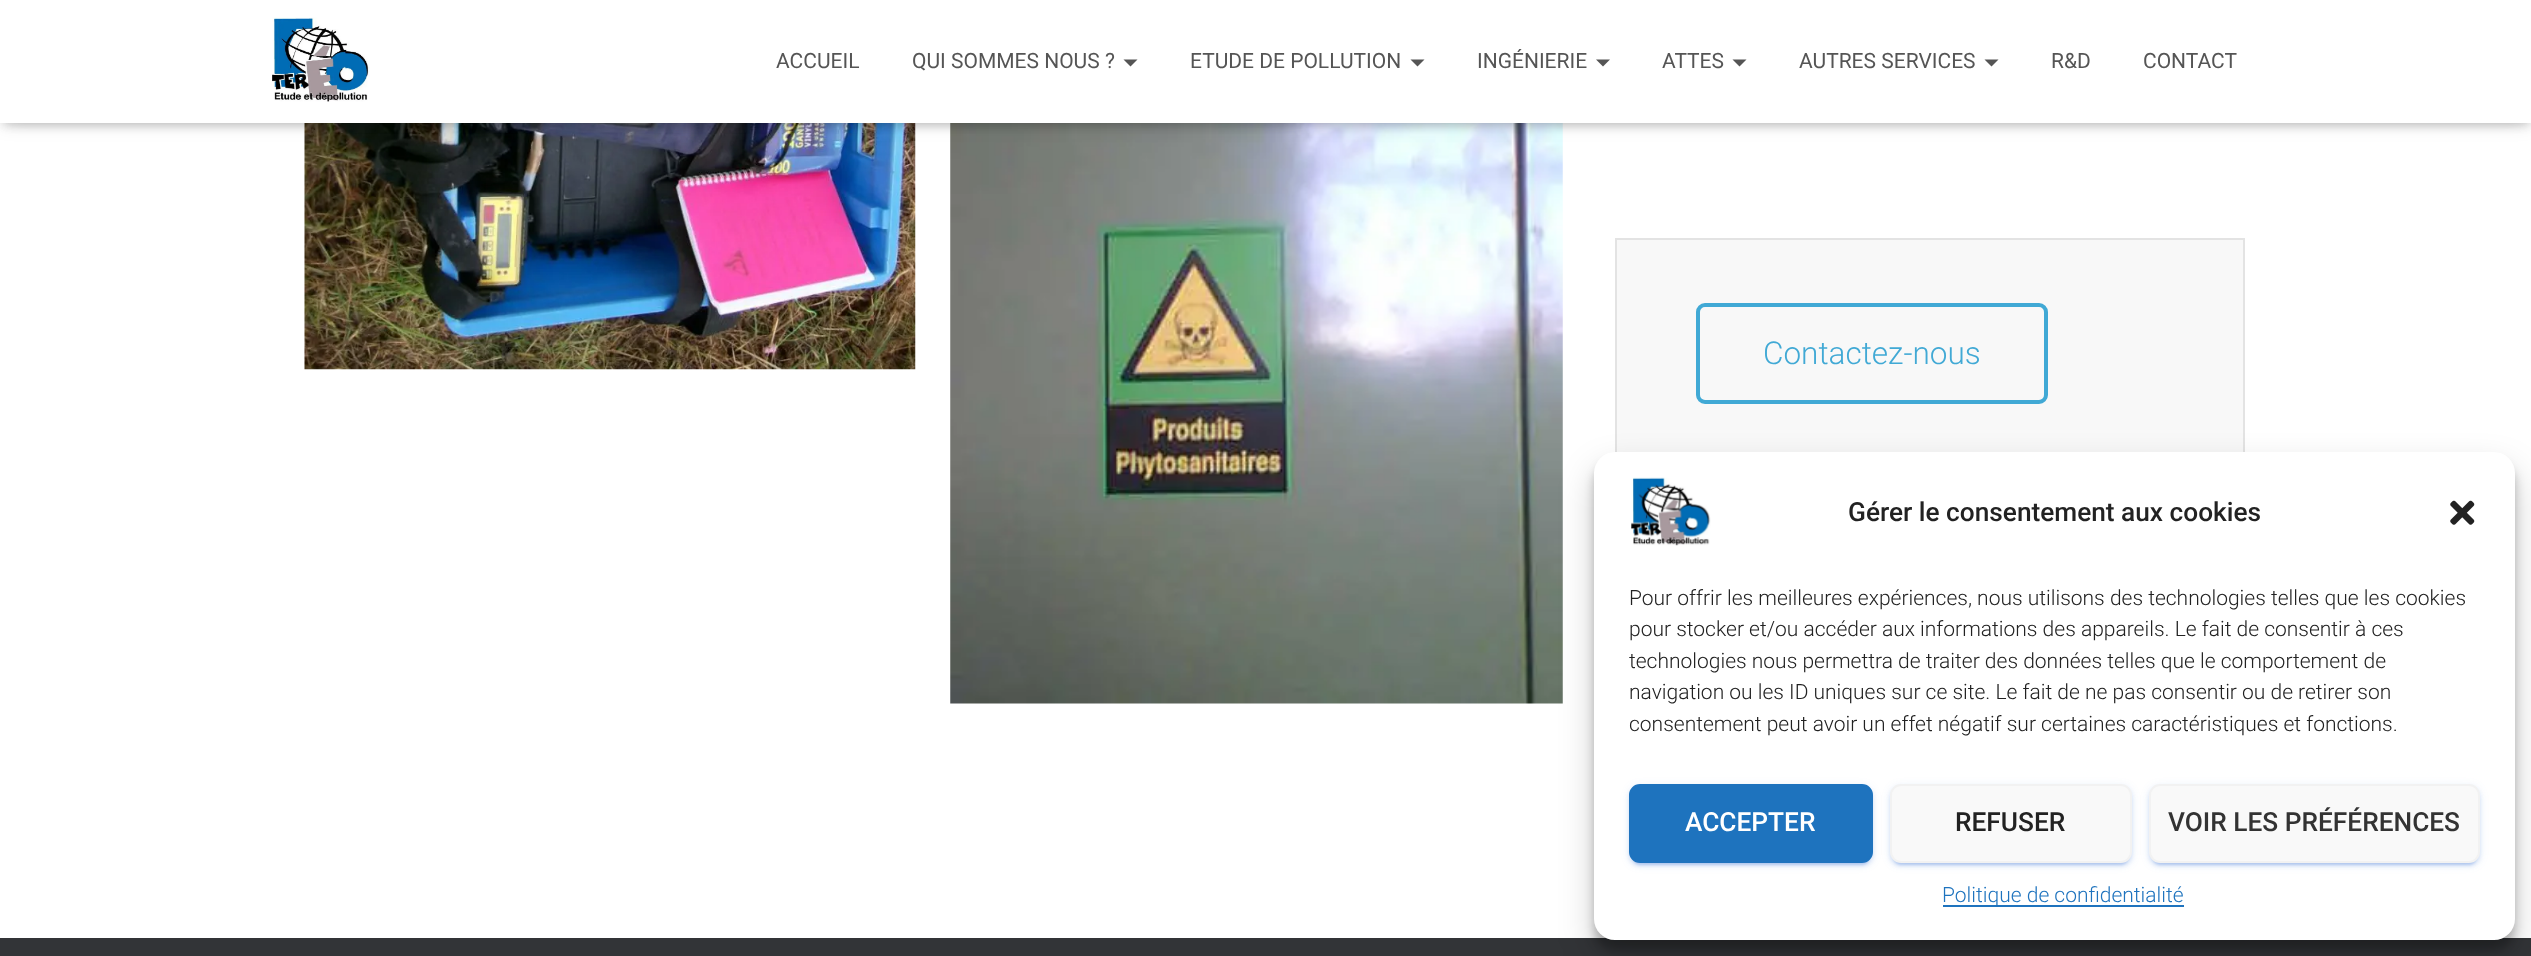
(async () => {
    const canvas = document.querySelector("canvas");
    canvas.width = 2531;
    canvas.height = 956;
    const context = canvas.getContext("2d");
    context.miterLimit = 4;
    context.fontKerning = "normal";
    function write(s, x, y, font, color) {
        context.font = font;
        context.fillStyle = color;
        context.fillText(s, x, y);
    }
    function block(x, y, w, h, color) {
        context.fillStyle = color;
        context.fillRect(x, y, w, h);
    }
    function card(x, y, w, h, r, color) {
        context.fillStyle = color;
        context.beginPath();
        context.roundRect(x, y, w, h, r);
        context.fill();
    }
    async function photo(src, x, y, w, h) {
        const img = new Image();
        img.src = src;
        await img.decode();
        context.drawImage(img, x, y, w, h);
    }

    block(0, 0, 2531, 956, "rgb(255, 255, 255)");
    await photo("media/2.png", 304, 123, 612, 247);
    await photo("media/3.png", 950, 123, 613, 581);
    context.fillStyle = "rgba(0, 0, 0, 0.1)";
    context.filter = "blur(4.5px)";
    context.beginPath();
    context.rect(4, 11, 2525, 115);
    context.fill();
    context.filter = "none";
    context.fillStyle = "rgba(0, 0, 0, 0.12)";
    context.filter = "blur(9px)";
    context.beginPath();
    context.rect(0, 2, 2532, 122);
    context.fill();
    context.filter = "none";
    context.fillStyle = "rgba(0, 0, 0, 0.42)";
    context.filter = "blur(9px)";
    context.beginPath();
    context.rect(11, 12, 2511, 102);
    context.fill();
    context.filter = "none";
    block(0, 0, 2531, 123, "rgb(255, 255, 255)");
    await photo("media/1.png", 272, 17, 98, 85);
    write("ACCUEIL", 776, 68, "21px Roboto", "rgb(85, 85, 85)");
    write("QUI SOMMES NOUS ?", 912, 68, "21px Roboto", "rgb(85, 85, 85)");
    context.beginPath();
    context.moveTo(1123.5, 59.5);
    context.lineTo(1137.5, 59.5);
    context.lineTo(1130.5, 66.5);
    context.closePath();
    context.fill();
    write("ETUDE DE POLLUTION", 1190, 68, "21px Roboto", "rgb(85, 85, 85)");
    context.beginPath();
    context.moveTo(1410.5, 59.5);
    context.lineTo(1424.5, 59.5);
    context.lineTo(1417.5, 66.5);
    context.closePath();
    context.fill();
    write("INGÉNIERIE", 1477, 68, "21px Roboto", "rgb(85, 85, 85)");
    context.beginPath();
    context.moveTo(1596, 59.5);
    context.lineTo(1610, 59.5);
    context.lineTo(1603, 66.5);
    context.closePath();
    context.fill();
    write("ATTES", 1662, 68, "21px Roboto", "rgb(85, 85, 85)");
    context.beginPath();
    context.moveTo(1732.5, 59.5);
    context.lineTo(1746.5, 59.5);
    context.lineTo(1739.5, 66.5);
    context.closePath();
    context.fill();
    write("AUTRES SERVICES", 1799, 68, "21px Roboto", "rgb(85, 85, 85)");
    context.beginPath();
    context.moveTo(1984.5, 59.5);
    context.lineTo(1998.5, 59.5);
    context.lineTo(1991.5, 66.5);
    context.closePath();
    context.fill();
    write("R&D", 2051, 68, "21px Roboto", "rgb(85, 85, 85)");
    write("CONTACT", 2143, 68, "21px Roboto", "rgb(85, 85, 85)");
    block(1617, 240, 626, 212, "rgb(248, 248, 248)");
    context.strokeStyle = "rgb(227, 227, 227)";
    context.lineWidth = 2;
    context.strokeRect(1616, 239, 628, 229);
    context.beginPath();
    context.roundRect(1698, 305, 348, 97, 7);
    context.strokeStyle = "rgb(65, 169, 213)";
    context.lineWidth = 4;
    context.stroke();
    write("Contactez-nous", 1763, 364, "300 31.5px Roboto", "rgb(65, 169, 213)");
    block(0, 938, 2531, 18, "rgb(50, 52, 55)");
    context.fillStyle = "rgba(0, 0, 0, 0.23)";
    context.filter = "blur(5px)";
    context.beginPath();
    context.roundRect(1594, 462, 921, 488, 21);
    context.fill();
    context.filter = "none";
    context.fillStyle = "rgba(0, 0, 0, 0.19)";
    context.filter = "blur(17.5px)";
    context.beginPath();
    context.roundRect(1594, 469, 921, 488, 21);
    context.fill();
    context.filter = "none";
    card(1594, 452, 921, 488, 21, "rgb(255, 255, 255)");
    await photo("media/4.png", 1631, 477, 80, 69);
    write("Gérer le consentement aux cookies", 1848, 521, "500 26.25px Roboto", "rgb(34, 34, 34)");
    await photo("media/5.png", 2450, 500, 25, 25);
    write("Pour offrir les meilleures expériences, nous utilisons des technologies telles que les cookies", 1629, 605, "300 21px Roboto", "rgb(34, 34, 34)");
    write("pour stocker et/ou accéder aux informations des appareils. Le fait de consentir à ces", 1629, 636, "300 21px Roboto", "rgb(34, 34, 34)");
    write("technologies nous permettra de traiter des données telles que le comportement de", 1629, 668, "300 21px Roboto", "rgb(34, 34, 34)");
    write("navigation ou les ID uniques sur ce site. Le fait de ne pas consentir ou de retirer son", 1629, 699, "300 21px Roboto", "rgb(34, 34, 34)");
    write("consentement peut avoir un effet négatif sur certaines caractéristiques et fonctions.", 1629, 731, "300 21px Roboto", "rgb(34, 34, 34)");
    context.fillStyle = "rgba(43, 106, 216, 0.12)";
    context.filter = "blur(4.5px)";
    context.beginPath();
    context.roundRect(1629, 786, 244, 79, 11);
    context.fill();
    context.filter = "none";
    context.fillStyle = "rgba(43, 106, 216, 0.2)";
    context.filter = "blur(1px)";
    context.beginPath();
    context.roundRect(1633, 793, 236, 72, 7);
    context.fill();
    context.filter = "none";
    context.fillStyle = "rgba(43, 106, 216, 0.14)";
    context.filter = "blur(2px)";
    context.beginPath();
    context.roundRect(1629, 788, 244, 78, 11);
    context.fill();
    context.filter = "none";
    context.fillStyle = "rgb(30, 115, 190)";
    context.beginPath();
    context.roundRect(1630, 785, 242, 77, 10);
    context.fill();
    context.strokeStyle = "rgb(30, 115, 190)";
    context.lineWidth = 2;
    context.stroke();
    write("ACCEPTER", 1685, 831, "500 26.25px Roboto", "rgb(255, 255, 255)");
    context.fillStyle = "rgba(43, 106, 216, 0.12)";
    context.filter = "blur(4.5px)";
    context.beginPath();
    context.roundRect(1890, 786, 242, 79, 11);
    context.fill();
    context.filter = "none";
    context.fillStyle = "rgba(43, 106, 216, 0.2)";
    context.filter = "blur(1px)";
    context.beginPath();
    context.roundRect(1894, 793, 234, 72, 7);
    context.fill();
    context.filter = "none";
    context.fillStyle = "rgba(43, 106, 216, 0.14)";
    context.filter = "blur(2px)";
    context.beginPath();
    context.roundRect(1890, 788, 242, 78, 11);
    context.fill();
    context.filter = "none";
    context.fillStyle = "rgb(249, 249, 249)";
    context.beginPath();
    context.roundRect(1891, 785, 240, 77, 10);
    context.fill();
    context.strokeStyle = "rgb(242, 242, 242)";
    context.stroke();
    write("REFUSER", 1955, 831, "500 26.25px Roboto", "rgb(34, 34, 34)");
    context.fillStyle = "rgba(43, 106, 216, 0.12)";
    context.filter = "blur(4.5px)";
    context.beginPath();
    context.roundRect(2149, 786, 331, 79, 11);
    context.fill();
    context.filter = "none";
    context.fillStyle = "rgba(43, 106, 216, 0.2)";
    context.filter = "blur(1px)";
    context.beginPath();
    context.roundRect(2153, 793, 323, 72, 7);
    context.fill();
    context.filter = "none";
    context.fillStyle = "rgba(43, 106, 216, 0.14)";
    context.filter = "blur(2px)";
    context.beginPath();
    context.roundRect(2149, 788, 331, 78, 11);
    context.fill();
    context.filter = "none";
    context.fillStyle = "rgb(249, 249, 249)";
    context.beginPath();
    context.roundRect(2150, 785, 329, 77, 10);
    context.fill();
    context.stroke();
    write("VOIR LES PRÉFÉRENCES", 2168, 831, "500 26.25px Roboto", "rgb(51, 51, 51)");
    block(1943, 905, 241, 2, "rgb(30, 115, 190)");
    write("Politique de confidentialité", 1942, 902, "300 21px Roboto", "rgb(30, 115, 190)");
})();
